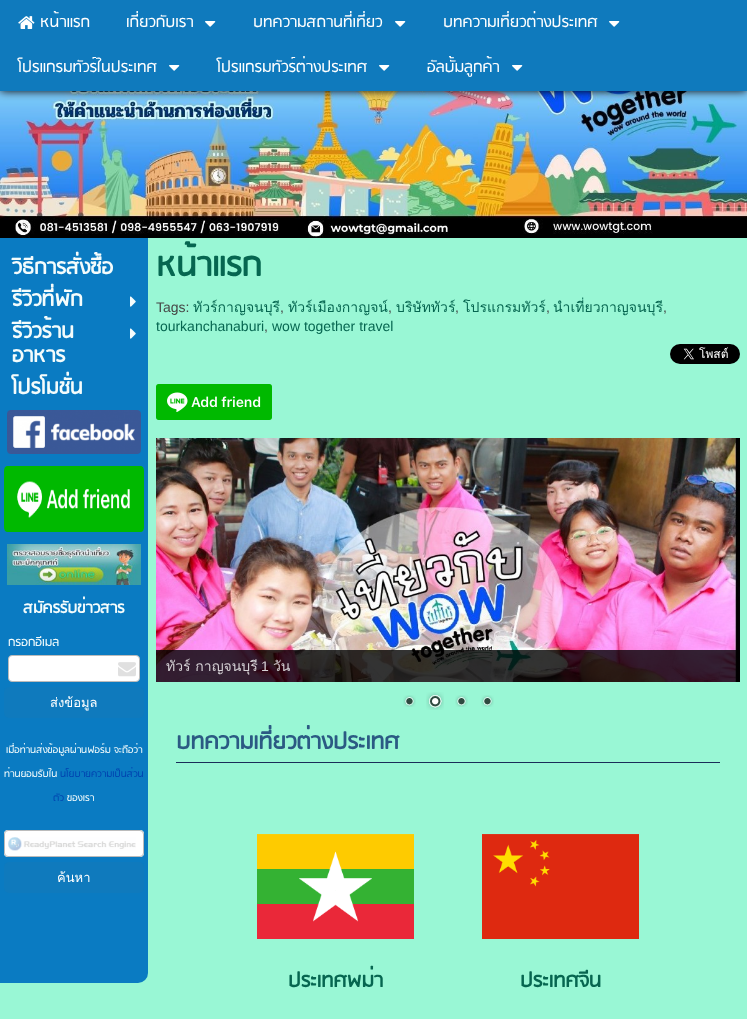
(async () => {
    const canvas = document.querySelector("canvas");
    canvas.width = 747;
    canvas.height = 1019;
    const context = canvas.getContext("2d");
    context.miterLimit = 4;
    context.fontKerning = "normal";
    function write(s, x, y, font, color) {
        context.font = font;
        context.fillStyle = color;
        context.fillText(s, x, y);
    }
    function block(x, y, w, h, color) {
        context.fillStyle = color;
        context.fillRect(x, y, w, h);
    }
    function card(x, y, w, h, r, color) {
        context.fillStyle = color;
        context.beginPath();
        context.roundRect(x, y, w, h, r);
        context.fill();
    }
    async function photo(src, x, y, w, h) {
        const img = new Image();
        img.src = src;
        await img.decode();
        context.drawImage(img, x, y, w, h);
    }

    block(0, 0, 747, 1019, "rgb(153, 247, 213)");
    await photo("media/3.png", 0, 91, 747, 147);
    context.fillStyle = "rgb(0, 0, 0)";
    context.filter = "blur(5px)";
    context.beginPath();
    context.rect(0, 0, 747, 91);
    context.fill();
    context.filter = "none";
    block(0, 0, 747, 91, "rgb(15, 122, 189)");
    await photo("media/1.png", 18, 16, 17, 13);
    write("หน้าแรก", 40, 27, "18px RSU", "rgb(255, 255, 255)");
    write("เกี่ยวกับเรา", 126, 27, "18px RSU", "rgb(255, 255, 255)");
    await photo("media/2.png", 205, 21, 11, 6);
    write("บทความสถานที่เที่ยว", 253, 27, "18px RSU", "rgb(255, 255, 255)");
    await photo("media/2.png", 395, 21, 11, 6);
    write("บทความเที่ยวต่างประเทศ", 443, 27, "18px RSU", "rgb(255, 255, 255)");
    await photo("media/2.png", 609, 21, 11, 6);
    write("โปรแกรมทัวร์ในประเทศ", 18, 72, "18px RSU", "rgb(255, 255, 255)");
    await photo("media/2.png", 169, 65, 11, 6);
    write("โปรแกรมทัวร์ต่างประเทศ", 217, 72, "18px RSU", "rgb(255, 255, 255)");
    await photo("media/2.png", 379, 65, 11, 6);
    write("อัลบั้มลูกค้า", 427, 72, "18px RSU", "rgb(255, 255, 255)");
    await photo("media/2.png", 512, 65, 11, 6);
    context.fillStyle = "rgb(10, 123, 194)";
    context.beginPath();
    context.roundRect(0, 238, 148, 745, [0, 0, 10, 0]);
    context.fill();
    write("วิธีการสั่งซื้อ", 12, 274, "bold 24px RSU", "rgb(244, 252, 252)");
    write("รีวิวที่พัก", 12, 306, "bold 24px RSU", "rgb(244, 252, 252)");
    await photo("media/4.png", 130, 296, 6, 11);
    write("รีวิวร้าน", 12, 338, "bold 24px RSU", "rgb(244, 252, 252)");
    write("อาหาร", 12, 362, "bold 24px RSU", "rgb(244, 252, 252)");
    await photo("media/4.png", 130, 328, 6, 11);
    write("โปรโมชั่น", 12, 394, "bold 24px RSU", "rgb(244, 252, 252)");
    await photo("media/5.png", 7, 410, 134, 44);
    await photo("media/6.png", 4, 466, 140, 66);
    await photo("media/7.png", 7, 544, 134, 41);
    write("สมัครรับข่าวสาร", 23, 613, "bold 18px RSU", "rgb(244, 252, 252)");
    write("กรอกอีเมล", 8, 646, "14px RSU", "rgb(244, 252, 252)");
    context.fillStyle = "rgb(255, 255, 255)";
    context.beginPath();
    context.roundRect(8.5, 655.5, 131, 26, 3.5);
    context.fill();
    context.strokeStyle = "rgb(187, 187, 187)";
    context.stroke();
    await photo("media/8.png", 118, 662, 18, 15);
    card(4, 687, 140, 31, 5, "rgb(15, 122, 189)");
    write("ส่งข้อมูล", 50, 707, "13px Loma", "rgb(255, 255, 255)");
    write("เมื่อท่านส่งข้อมูลผ่านฟอร์ม จะถือว่า", 6, 753, "11.25px RSU", "rgb(244, 252, 252)");
    write("ท่านยอมรับใน", 4, 777, "11.25px RSU", "rgb(244, 252, 252)");
    write("นโยบายความเป็นส่วน", 60, 777, "11.25px RSU", "rgb(0, 68, 176)");
    write("ตัว", 53, 801, "11.25px RSU", "rgb(0, 68, 176)");
    write("ของเรา", 67, 801, "11.25px RSU", "rgb(244, 252, 252)");
    card(4, 830, 140, 27, 4, "rgb(255, 255, 255)");
    await photo("media/9.png", 8, 837, 128, 14);
    context.beginPath();
    context.roundRect(4.5, 830.5, 139, 26, 3.5);
    context.stroke();
    card(4, 862, 140, 31, 5, "rgb(15, 122, 189)");
    write("ค้นหา", 57, 882, "13px Loma", "rgb(255, 255, 255)");
    write("หน้าแรก", 156, 276, "bold 38px RSU", "rgb(6, 102, 80)");
    write("Tags:", 156, 312, "14px Liberation Sans", "rgb(70, 70, 70)");
    write("ทัวร์กาญจนบุรี", 193, 312, "14px Loma", "rgb(6, 102, 80)");
    write(",", 280, 312, "14px Liberation Sans", "rgb(70, 70, 70)");
    write("ทัวร์เมืองกาญจน์", 288, 312, "14px Loma", "rgb(6, 102, 80)");
    write("บริษัททัวร์", 396, 312, "14px Loma", "rgb(6, 102, 80)");
    write("โปรแกรมทัวร์", 463, 312, "14px Loma", "rgb(6, 102, 80)");
    write(",", 546, 312, "14px Liberation Sans", "rgb(70, 70, 70)");
    write("นำเที่ยวกาญจนบุรี", 553, 312, "14px Loma", "rgb(6, 102, 80)");
    write(",", 388, 312, "14px Liberation Sans", "rgb(70, 70, 70)");
    write(",", 455, 312, "14px Liberation Sans", "rgb(70, 70, 70)");
    write(",", 663, 312, "14px Liberation Sans", "rgb(70, 70, 70)");
    write("tourkanchanaburi", 156, 331, "14px Liberation Sans", "rgb(6, 102, 80)");
    write(",", 264, 331, "14px Liberation Sans", "rgb(70, 70, 70)");
    write("wow together travel", 272, 331, "14px Liberation Sans", "rgb(6, 102, 80)");
    await photo("media/10.png", 670, 344, 70, 20);
    await photo("media/11.png", 156, 384, 116, 36);
    await photo("media/12.png", 156, 438, 584, 244);
    await photo("media/13.png", 156, 442, 584, 239);
    block(156, 650, 584, 32, "rgba(0, 0, 0, 0.8)");
    write("ทัวร์ กาญจนบุรี", 166, 671, "14px Loma", "rgb(214, 210, 214)");
    write("1", 261, 671, "14px Liberation Sans", "rgb(214, 210, 214)");
    write("วัน", 273, 671, "14px Loma", "rgb(214, 210, 214)");
    await photo("media/14.png", 403, 695, 13, 12);
    await photo("media/15.png", 426, 692, 18, 18);
    await photo("media/14.png", 455, 695, 13, 12);
    await photo("media/14.png", 481, 695, 13, 12);
    write("บทความเที่ยวต่างประเทศ", 176, 749, "bold 26px RSU", "rgb(43, 90, 131)");
    block(176, 762, 544, 1, "rgb(25, 45, 89)");
    await photo("media/16.png", 257, 834, 157, 105);
    write("ประเทศพม่า", 288, 987, "bold 23px RSU", "rgb(6, 102, 80)");
    await photo("media/17.png", 482, 834, 157, 105);
    write("ประเทศจีน", 520, 987, "bold 23px RSU", "rgb(6, 102, 80)");
})();
